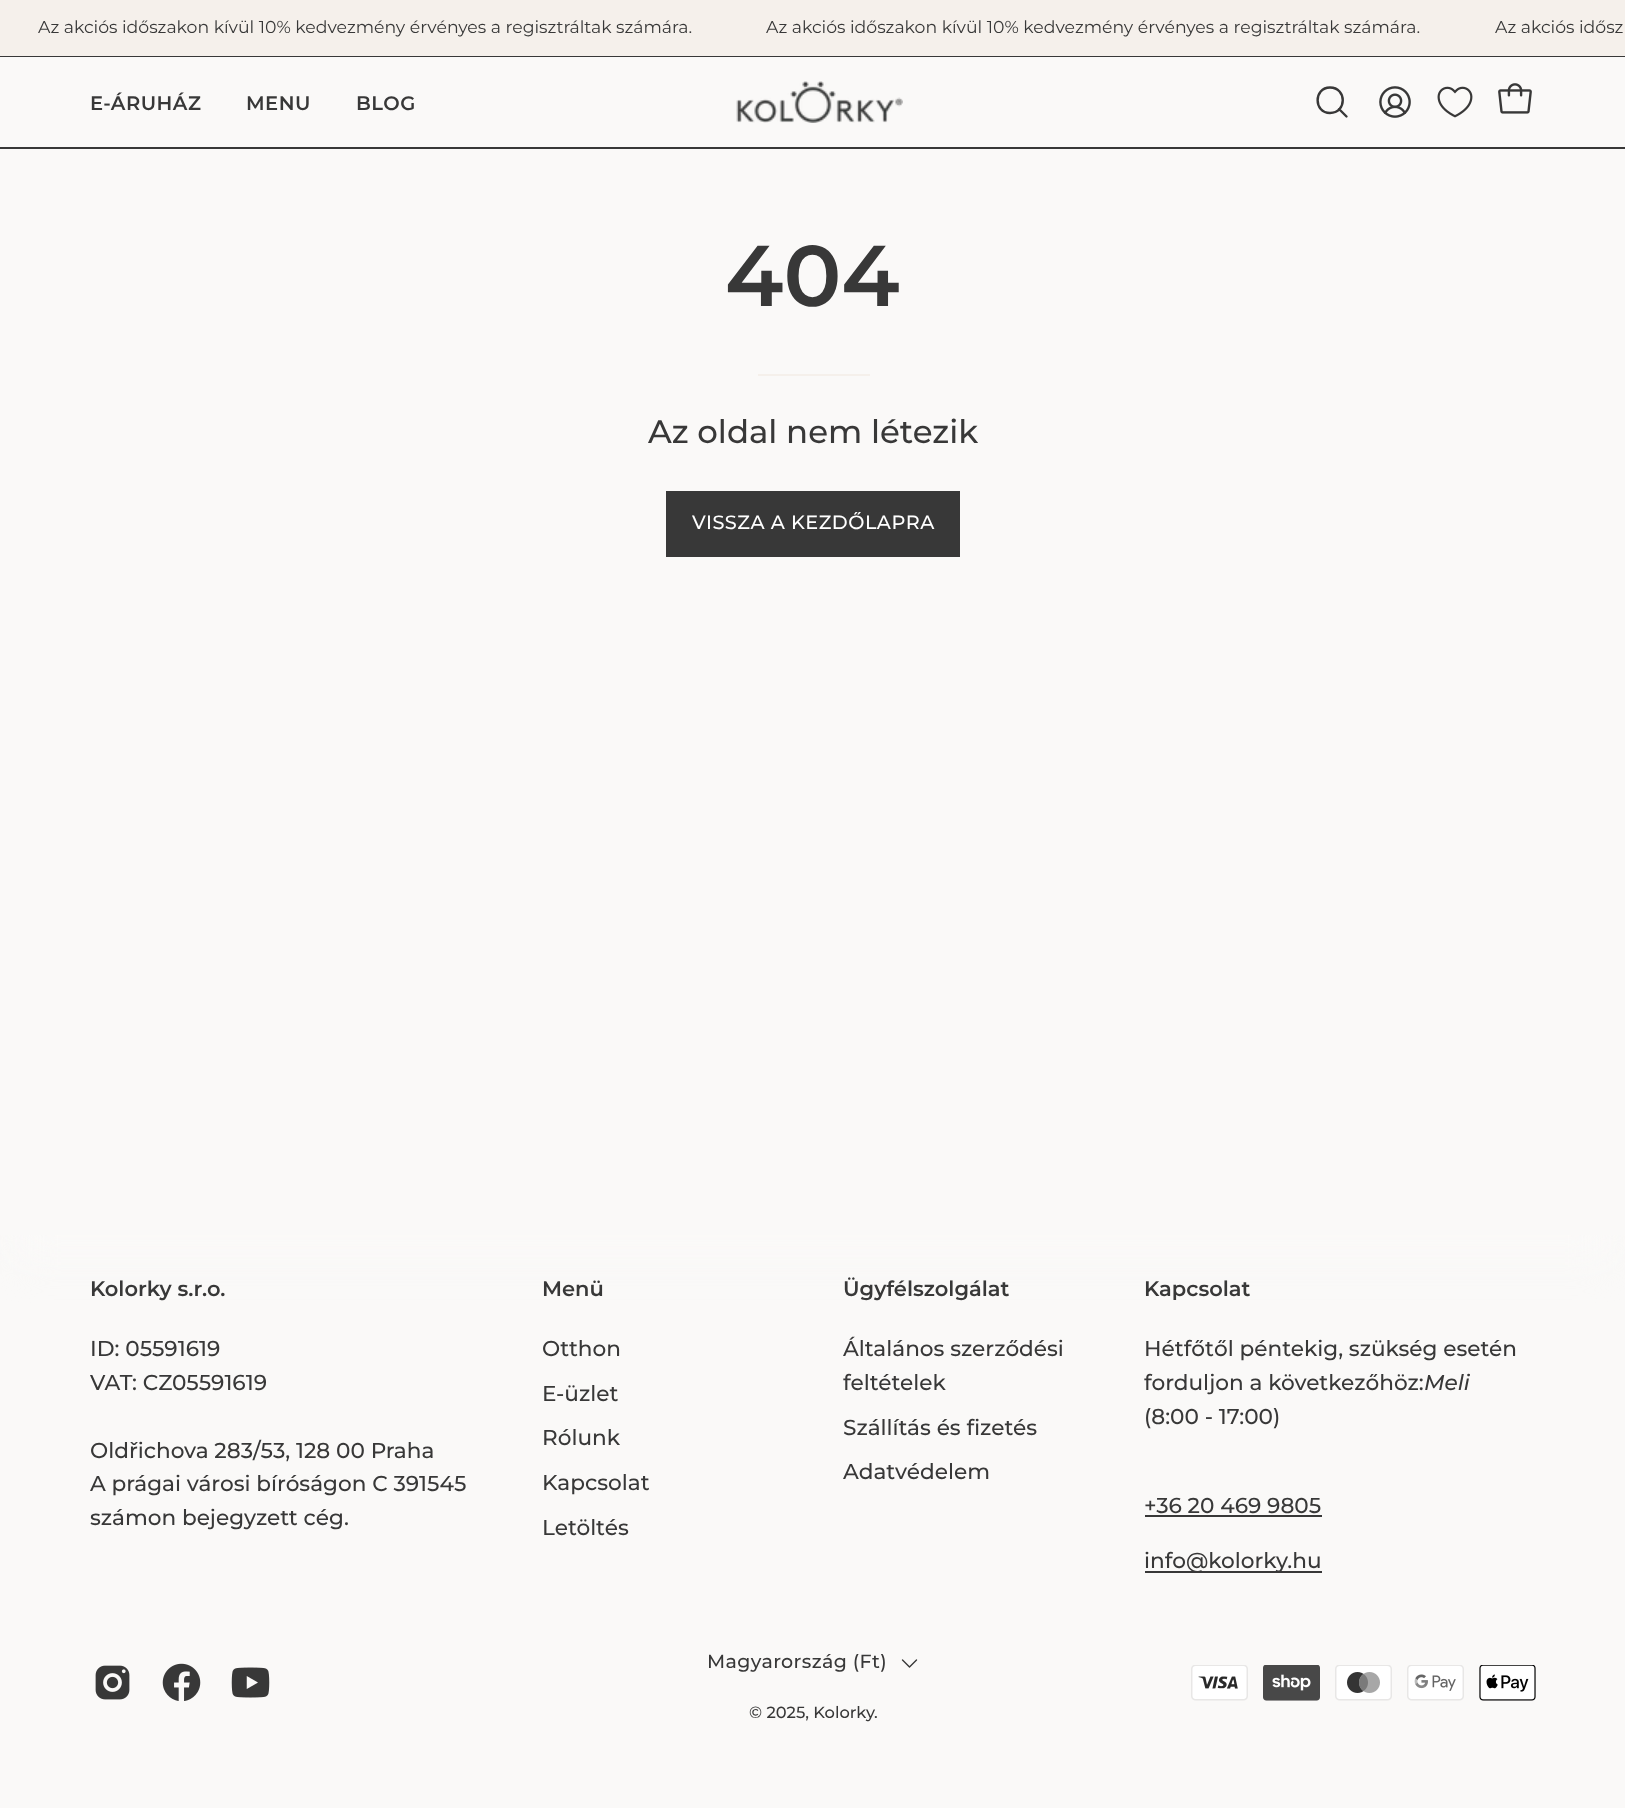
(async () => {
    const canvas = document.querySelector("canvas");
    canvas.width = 1625;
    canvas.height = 1808;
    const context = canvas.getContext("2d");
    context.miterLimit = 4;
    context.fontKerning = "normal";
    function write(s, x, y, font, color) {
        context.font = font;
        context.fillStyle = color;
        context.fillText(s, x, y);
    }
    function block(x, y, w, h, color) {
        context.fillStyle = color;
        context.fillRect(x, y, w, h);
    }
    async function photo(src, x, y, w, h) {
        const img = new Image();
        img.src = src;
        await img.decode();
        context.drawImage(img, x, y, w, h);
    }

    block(0, 0, 1625, 1808, "rgb(250, 249, 248)");
    block(0, 0, 1625, 56, "rgb(245, 240, 235)");
    block(0, 56, 1625, 1, "rgb(56, 56, 56)");
    write("Az akciós időszakon kívül 10% kedvezmény érvényes a regisztráltak számára.", 38, 33, "100 17.3px 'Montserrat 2'", "rgb(56, 56, 56)");
    write("Az akciós időszakon kívül 10% kedvezmény érvényes a regisztráltak számára.", 766, 33, "100 17.3px 'Montserrat 2'", "rgb(56, 56, 56)");
    write("Az akciós idősz", 1495, 33, "100 17.3px 'Montserrat 2'", "rgb(56, 56, 56)");
    context.letterSpacing = "0.5px";
    write("E-ÁRUHÁZ", 90, 110, "600 19.5px Montserrat", "rgb(56, 56, 56)");
    write("MENU", 246, 110, "600 19.5px Montserrat", "rgb(56, 56, 56)");
    write("BLOG", 356, 110, "600 19.5px Montserrat", "rgb(56, 56, 56)");
    context.beginPath();
    context.moveTo(1330, 113);
    context.bezierCurveTo(1347, 113, 1347, 87.5, 1330, 87.5);
    context.bezierCurveTo(1313.5, 87.5, 1313.5, 113, 1330, 113);
    context.closePath();
    context.moveTo(1339, 109);
    context.lineTo(1346.5, 116.5);
    context.strokeStyle = "rgb(56, 56, 56)";
    context.lineWidth = 2.4;
    context.lineCap = "round";
    context.lineJoin = "round";
    context.stroke();
    await photo("media/1.png", 1379, 86, 32, 32);
    await photo("media/2.png", 1437, 86, 36, 32);
    await photo("media/3.png", 1498, 83, 34, 31);
    await photo("media/4.png", 736, 81, 167, 42);
    context.save();
    context.beginPath();
    context.moveTo(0, 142);
    context.lineTo(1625, 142);
    context.lineTo(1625, 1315);
    context.lineTo(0, 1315);
    context.closePath();
    context.moveTo(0, 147);
    context.lineTo(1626, 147);
    context.lineTo(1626, 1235);
    context.lineTo(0, 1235);
    context.closePath();
    context.clip("evenodd");
    context.fillStyle = "rgb(250, 249, 248)";
    context.filter = "blur(19px)";
    context.beginPath();
    context.rect(15, 200, 1596, 1057);
    context.fill();
    context.filter = "none";
    context.restore();
    block(0, 147, 1625, 2, "rgb(56, 56, 56)");
    context.letterSpacing = "0px";
    write("404", 725, 306, "600 86px Montserrat", "rgb(56, 56, 56)");
    block(758, 374, 112, 2, "rgb(245, 240, 235)");
    write("Az oldal nem létezik", 648, 443, "100 32.4px Montserrat", "rgb(56, 56, 56)");
    block(666, 491, 294, 66, "rgb(56, 56, 56)");
    context.letterSpacing = "0.5px";
    write("VISSZA A KEZDŐLAPRA", 692, 529, "100 19.25px Montserrat", "rgb(255, 255, 255)");
    context.letterSpacing = "0px";
    write("Kolorky s.r.o.", 90, 1296, "600 21px Montserrat", "rgb(56, 56, 56)");
    write("ID: 05591619", 90, 1356, "100 21.6px Montserrat", "rgb(56, 56, 56)");
    write("VAT: CZ05591619", 90, 1390, "100 21.6px Montserrat", "rgb(56, 56, 56)");
    write("Oldřichova 283/53, 128 00 Praha", 90, 1458, "100 21.6px Montserrat", "rgb(56, 56, 56)");
    write("A prágai városi bíróságon C 391545", 90, 1491, "100 21.6px Montserrat", "rgb(56, 56, 56)");
    write("számon bejegyzett cég.", 90, 1525, "100 21.6px Montserrat", "rgb(56, 56, 56)");
    write("Menü", 542, 1296, "600 21px Montserrat", "rgb(56, 56, 56)");
    write("Otthon", 542, 1356, "100 21.6px Montserrat", "rgb(56, 56, 56)");
    write("E-üzlet", 542, 1401, "100 21.6px Montserrat", "rgb(56, 56, 56)");
    write("Rólunk", 542, 1445, "100 21.6px Montserrat", "rgb(56, 56, 56)");
    write("Kapcsolat", 542, 1490, "100 21.6px Montserrat", "rgb(56, 56, 56)");
    write("Letöltés", 542, 1535, "100 21.6px Montserrat", "rgb(56, 56, 56)");
    write("Ügyfélszolgálat", 843, 1296, "600 21px Montserrat", "rgb(56, 56, 56)");
    write("Általános szerződési", 843, 1356, "100 21.6px Montserrat", "rgb(56, 56, 56)");
    write("feltételek", 843, 1390, "100 21.6px Montserrat", "rgb(56, 56, 56)");
    write("Szállítás és fizetés", 843, 1435, "100 21.6px Montserrat", "rgb(56, 56, 56)");
    write("Adatvédelem", 843, 1479, "100 21.6px Montserrat", "rgb(56, 56, 56)");
    write("Kapcsolat", 1144, 1296, "600 21px Montserrat", "rgb(56, 56, 56)");
    write("Hétfőtől péntekig, szükség esetén", 1144, 1356, "100 21.6px Montserrat", "rgb(56, 56, 56)");
    write("forduljon a következőhöz:", 1144, 1390, "100 21.6px Montserrat", "rgb(56, 56, 56)");
    write("Meli", 1424, 1390, "italic 500 21.6px Montserrat", "rgb(56, 56, 56)");
    write("(8:00 - 17:00)", 1144, 1424, "100 21.6px Montserrat", "rgb(56, 56, 56)");
    write("+36 20 469 9805", 1144, 1513, "100 21.6px Montserrat", "rgb(56, 56, 56)");
    block(1145, 1515, 177, 2, "rgb(56, 56, 56)");
    block(1145, 1571, 177, 2, "rgb(56, 56, 56)");
    write("info@kolorky.hu", 1144, 1568, "100 21.6px Montserrat", "rgb(56, 56, 56)");
    await photo("media/5.png", 95, 1665, 35, 35);
    await photo("media/6.png", 162, 1663, 39, 38);
    await photo("media/7.png", 231, 1667, 39, 31);
    context.letterSpacing = "0.4px";
    write("Magyarország (Ft)", 707, 1668, "100 19px Montserrat", "rgb(56, 56, 56)");
    context.beginPath();
    context.moveTo(916.5, 1660);
    context.lineTo(909.5, 1667);
    context.lineTo(902.5, 1660);
    context.lineWidth = 1.4;
    context.stroke();
    context.letterSpacing = "0px";
    write("© 2025, Kolorky", 749, 1718, "100 16.25px Montserrat", "rgb(56, 56, 56)");
    write(".", 874, 1718, "100 16.25px Montserrat", "rgb(56, 56, 56)");
    await photo("media/8.png", 1191, 1665, 57, 36);
    await photo("media/9.png", 1263, 1665, 57, 36);
    await photo("media/10.png", 1335, 1665, 57, 36);
    await photo("media/11.png", 1407, 1665, 57, 36);
    await photo("media/12.png", 1479, 1665, 57, 36);
})();
